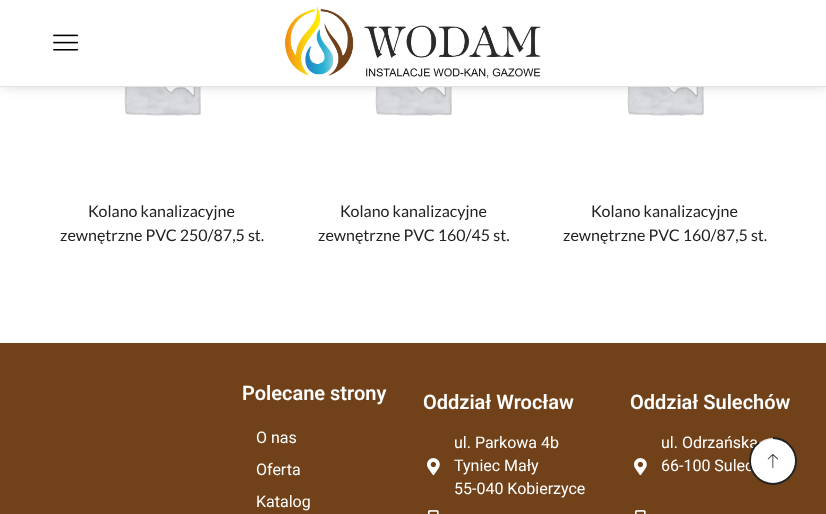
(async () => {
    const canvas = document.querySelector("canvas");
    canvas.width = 826;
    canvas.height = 514;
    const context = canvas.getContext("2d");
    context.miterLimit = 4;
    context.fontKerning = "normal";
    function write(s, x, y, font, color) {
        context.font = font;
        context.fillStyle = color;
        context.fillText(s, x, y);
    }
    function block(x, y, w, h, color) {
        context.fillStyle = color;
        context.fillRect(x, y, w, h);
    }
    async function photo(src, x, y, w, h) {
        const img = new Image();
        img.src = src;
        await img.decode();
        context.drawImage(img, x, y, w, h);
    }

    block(0, 0, 826, 514, "rgb(255, 255, 255)");
    await photo("media/3.png", 124, 87, 78, 29);
    await photo("media/3.png", 375, 87, 78, 29);
    await photo("media/3.png", 627, 87, 78, 29);
    context.fillStyle = "rgba(0, 0, 0, 0.15)";
    context.filter = "blur(6px)";
    context.beginPath();
    context.rect(2, 0, 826, 87);
    context.fill();
    context.filter = "none";
    block(0, 0, 826, 86, "rgb(255, 255, 255)");
    block(0, 86, 826, 1, "rgb(225, 225, 225)");
    await photo("media/1.png", 53, 34, 26, 17);
    await photo("media/2.png", 285, 6, 256, 72);
    write("Kolano kanalizacyjne", 88, 217, "16px Lato", "rgb(34, 34, 34)");
    write("zewnętrzne PVC 250/87,5 st.", 60, 241, "16px Lato", "rgb(34, 34, 34)");
    write("Kolano kanalizacyjne", 340, 217, "16px Lato", "rgb(34, 34, 34)");
    write("zewnętrzne PVC 160/45 st.", 318, 241, "16px Lato", "rgb(34, 34, 34)");
    write("Kolano kanalizacyjne", 591, 217, "16px Lato", "rgb(34, 34, 34)");
    write("zewnętrzne PVC 160/87,5 st.", 563, 241, "16px Lato", "rgb(34, 34, 34)");
    block(0, 343, 826, 171, "rgb(113, 66, 26)");
    context.fillStyle = "rgb(255, 255, 255)";
    context.beginPath();
    context.arc(773, 461, 22.5, 0, Math.PI * 2);
    context.fill();
    context.strokeStyle = "rgb(225, 225, 225)";
    context.stroke();
    write("ul. Odrzańska", 661, 448, "16px Roboto", "rgb(255, 255, 255)");
    write("66-100 Sulec", 661, 471, "16px Roboto", "rgb(255, 255, 255)");
    context.beginPath();
    context.moveTo(773, 438);
    context.bezierCurveTo(785.5, 438, 796, 448.5, 796, 461);
    context.bezierCurveTo(796, 473.5, 785.5, 484, 773, 484);
    context.bezierCurveTo(760.5, 484, 750, 473.5, 750, 461);
    context.bezierCurveTo(750, 453.5, 753.5, 446.5, 759, 442.5);
    context.strokeStyle = "rgb(34, 34, 34)";
    context.lineWidth = 1.9;
    context.stroke();
    await photo("media/4.png", 767, 454, 11, 14);
    write("Polecane strony", 242, 400, "600 20px Roboto", "rgb(255, 255, 255)");
    write("O nas", 256, 443, "16px Roboto", "rgb(255, 255, 255)");
    write("Oferta", 256, 475, "16px Roboto", "rgb(255, 255, 255)");
    write("Katalog", 256, 507, "16px Roboto", "rgb(255, 255, 255)");
    write("Oddział Wrocław", 423, 409, "600 20px Roboto", "rgb(255, 255, 255)");
    await photo("media/5.png", 427, 458, 13, 18);
    write("ul. Parkowa 4b", 454, 448, "16px Roboto", "rgb(255, 255, 255)");
    write("Tyniec Mały", 454, 471, "16px Roboto", "rgb(255, 255, 255)");
    write("55-040 Kobierzyce", 454, 494, "16px Roboto", "rgb(255, 255, 255)");
    await photo("media/6.png", 428, 510, 11, 4);
    write("Oddział Sulechów", 630, 409, "600 20px Roboto", "rgb(255, 255, 255)");
    await photo("media/5.png", 634, 458, 13, 18);
    await photo("media/6.png", 635, 510, 11, 4);
})();
